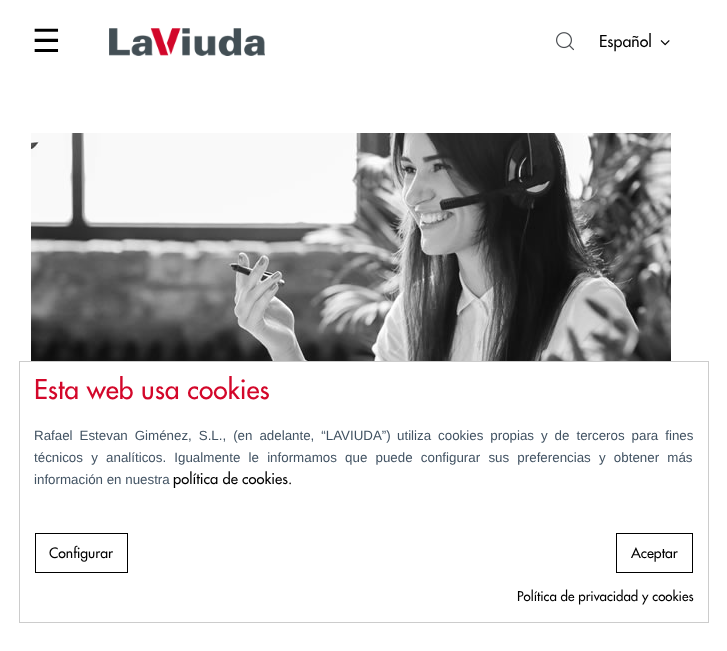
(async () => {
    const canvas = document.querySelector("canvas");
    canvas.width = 727;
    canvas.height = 651;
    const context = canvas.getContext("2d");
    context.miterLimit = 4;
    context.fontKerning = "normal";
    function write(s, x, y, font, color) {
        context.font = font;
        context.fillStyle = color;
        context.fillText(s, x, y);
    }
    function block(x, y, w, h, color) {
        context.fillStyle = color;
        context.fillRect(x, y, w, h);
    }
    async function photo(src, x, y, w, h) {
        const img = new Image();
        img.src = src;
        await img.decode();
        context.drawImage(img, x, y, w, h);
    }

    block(0, 0, 727, 651, "rgb(255, 255, 255)");
    write("☰", 32, 52, "32px DejaVu Sans", "rgb(0, 0, 0)");
    await photo("media/1.png", 109, 28, 156, 28);
    await photo("media/2.png", 556, 32, 18, 19);
    write("Español", 599, 47, "500 16px Futura", "rgb(0, 0, 0)");
    await photo("media/3.png", 660, 40, 10, 6);
    await photo("media/4.png", 31, 133, 640, 228);
    context.strokeStyle = "rgb(204, 204, 204)";
    context.strokeRect(19.5, 361.5, 689, 261);
    write("Esta web usa cookies", 34, 399, "500 26.5px Futura", "rgb(211, 7, 42)");
    context.wordSpacing = "3.25px";
    write("Rafael Estevan Giménez, S.L., (en adelante, “LAVIUDA”)", 34, 440, "13.35px Liberation Sans", "rgb(66, 83, 99)");
    write("utiliza cookies propias y de terceros para fines", 397, 440, "13.35px Liberation Sans", "rgb(66, 83, 99)");
    context.wordSpacing = "4.5px";
    write("técnicos y analíticos. Igualmente le informamos que puede configurar sus preferencias y obtener más", 34, 462, "13.35px Liberation Sans", "rgb(66, 83, 99)");
    context.wordSpacing = "0px";
    write("información en nuestra", 34, 484, "13.35px Liberation Sans", "rgb(66, 83, 99)");
    write("política de cookies", 173, 484, "500 14.75px Futura", "rgb(0, 0, 0)");
    write(".", 288, 484, "500 14.75px Futura", "rgb(35, 35, 35)");
    context.strokeStyle = "rgb(0, 0, 0)";
    context.strokeRect(35.5, 533.5, 92, 39);
    write("Configurar", 49, 558, "500 14px Futura", "rgb(0, 0, 0)");
    context.strokeRect(616.5, 533.5, 76, 39);
    write("Aceptar", 631, 558, "500 14px Futura", "rgb(0, 0, 0)");
    write("Política de privacidad y cookies", 517, 601, "500 13.25px Futura", "rgb(0, 0, 0)");
})();
